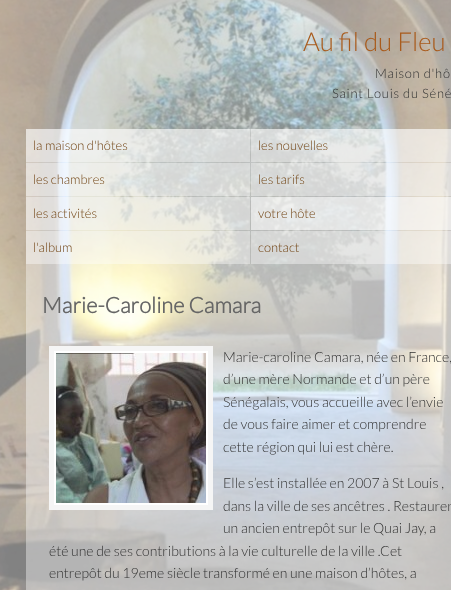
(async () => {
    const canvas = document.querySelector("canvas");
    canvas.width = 451;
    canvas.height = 590;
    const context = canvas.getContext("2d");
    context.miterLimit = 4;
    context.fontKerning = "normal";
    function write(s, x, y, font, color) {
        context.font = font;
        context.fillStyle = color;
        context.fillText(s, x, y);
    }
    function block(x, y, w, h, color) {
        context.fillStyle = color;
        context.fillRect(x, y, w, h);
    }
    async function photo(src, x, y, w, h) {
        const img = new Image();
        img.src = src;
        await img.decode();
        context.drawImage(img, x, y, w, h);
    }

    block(0, 0, 451, 590, "rgb(255, 255, 255)");
    await photo("media/1.png", 0, 0, 451, 590);
    write("Au fil du Fleu", 303, 51, "300 26px Lato", "rgb(169, 91, 28)");
    context.letterSpacing = "0.75px";
    write("Maison d'hô", 375, 78, "300 13px Lato", "rgb(51, 51, 51)");
    write("Saint Louis du Séné", 332, 98, "300 13px Lato", "rgb(51, 51, 51)");
    block(26, 129, 425, 461, "rgba(255, 255, 255, 0.4)");
    block(26, 129, 224, 33, "rgba(255, 255, 255, 0.4)");
    context.letterSpacing = "0px";
    write("la maison d'hôtes", 33, 150, "300 13px Lato", "rgb(115, 70, 22)");
    block(251, 129, 200, 33, "rgba(255, 255, 255, 0.4)");
    write("les nouvelles", 258, 150, "300 13px Lato", "rgb(115, 70, 22)");
    block(26, 163, 224, 33, "rgba(255, 255, 255, 0.4)");
    write("les chambres", 33, 184, "300 13px Lato", "rgb(115, 70, 22)");
    block(251, 163, 200, 33, "rgba(255, 255, 255, 0.4)");
    write("les tarifs", 258, 184, "300 13px Lato", "rgb(115, 70, 22)");
    block(26, 197, 224, 33, "rgba(255, 255, 255, 0.4)");
    write("les activités", 33, 218, "300 13px Lato", "rgb(115, 70, 22)");
    block(251, 197, 200, 33, "rgba(255, 255, 255, 0.6)");
    write("votre hôte", 258, 218, "300 13px Lato", "rgb(115, 70, 22)");
    block(26, 231, 224, 33, "rgba(255, 255, 255, 0.4)");
    write("l'album", 33, 252, "300 13px Lato", "rgb(115, 70, 22)");
    block(251, 231, 200, 33, "rgba(255, 255, 255, 0.4)");
    write("contact", 258, 252, "300 13px Lato", "rgb(115, 70, 22)");
    write("Marie-Caroline Camara", 42, 313, "bold 21.8px Lato", "rgb(102, 102, 102)");
    context.fillStyle = "rgb(255, 255, 255)";
    context.beginPath();
    context.rect(51.5, 348.5, 159, 159);
    context.fill();
    context.strokeStyle = "rgb(245, 245, 245)";
    context.lineWidth = 5;
    context.stroke();
    await photo("media/2.png", 56, 353, 150, 150);
    write("Marie-caroline Camara, née en France,", 223, 362, "300 14.05px Lato", "rgb(51, 51, 51)");
    write("d’une mère Normande et d’un père", 223, 384, "300 14.05px Lato", "rgb(51, 51, 51)");
    write("Sénégalais, vous accueille avec l’envie", 223, 407, "300 14.05px Lato", "rgb(51, 51, 51)");
    write("de vous faire aimer et comprendre", 223, 429, "300 14.05px Lato", "rgb(51, 51, 51)");
    write("cette région qui lui est chère.", 223, 452, "300 14.05px Lato", "rgb(51, 51, 51)");
    write("Elle s’est installée en 2007 à St Louis ,", 223, 488, "300 14.05px Lato", "rgb(51, 51, 51)");
    write("dans la ville de ses ancêtres . Restaurer", 223, 511, "300 14.05px Lato", "rgb(51, 51, 51)");
    write("un ancien entrepôt sur le Quai Jay, a", 223, 533, "300 14.05px Lato", "rgb(51, 51, 51)");
    write("été une de ses contributions à la vie culturelle de la ville .Cet", 49, 556, "300 14.05px Lato", "rgb(51, 51, 51)");
    write("entrepôt du 19eme siècle transformé en une maison d’hôtes, a", 49, 578, "300 14.05px Lato", "rgb(51, 51, 51)");
})();
